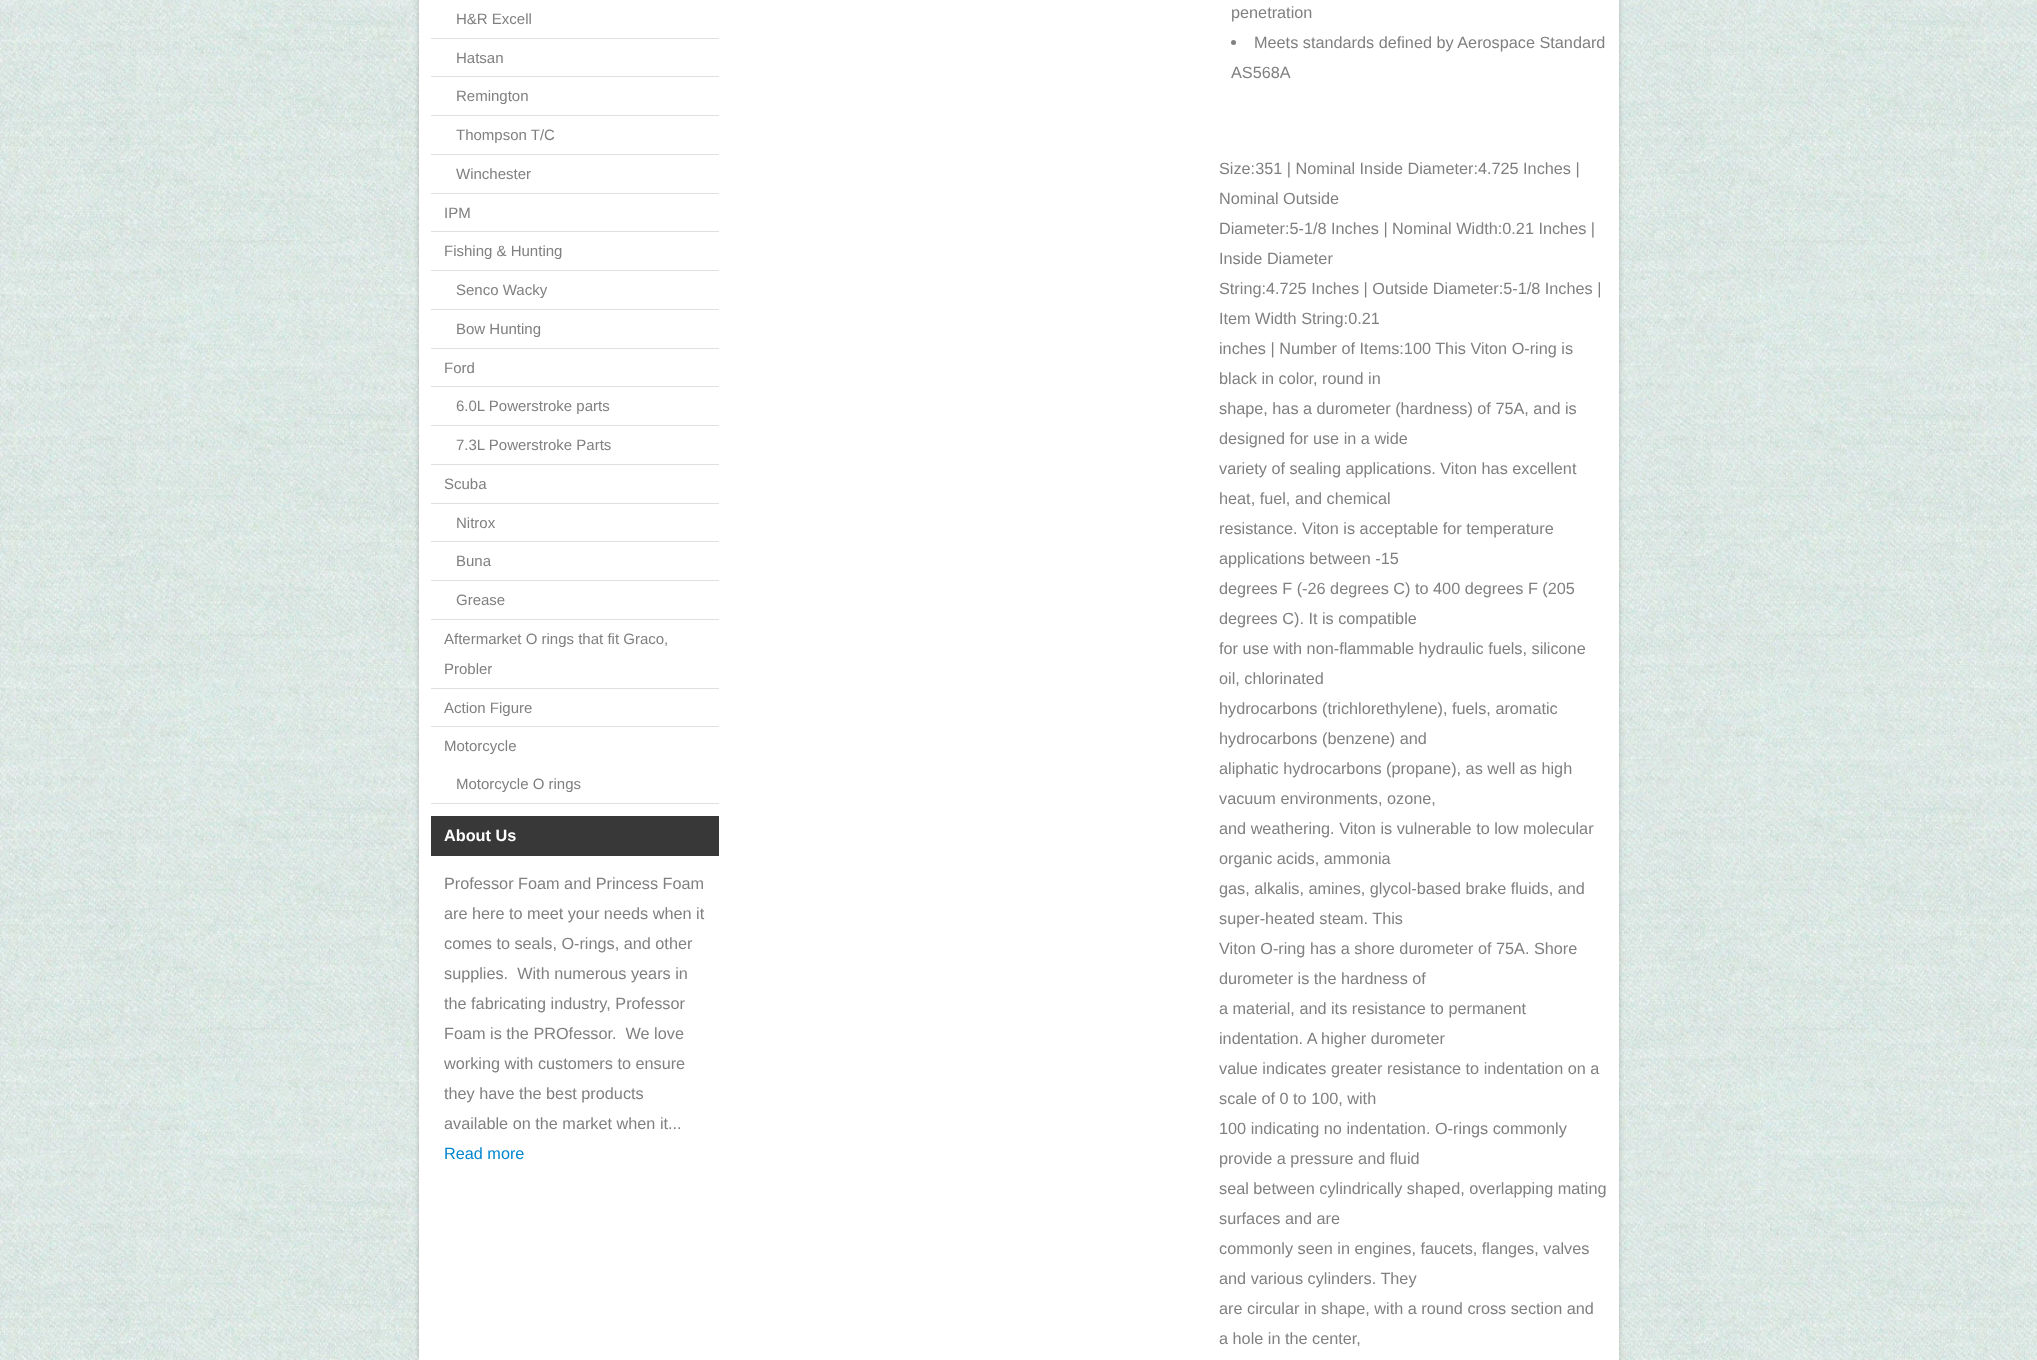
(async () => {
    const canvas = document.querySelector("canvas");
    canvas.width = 2037;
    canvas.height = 1360;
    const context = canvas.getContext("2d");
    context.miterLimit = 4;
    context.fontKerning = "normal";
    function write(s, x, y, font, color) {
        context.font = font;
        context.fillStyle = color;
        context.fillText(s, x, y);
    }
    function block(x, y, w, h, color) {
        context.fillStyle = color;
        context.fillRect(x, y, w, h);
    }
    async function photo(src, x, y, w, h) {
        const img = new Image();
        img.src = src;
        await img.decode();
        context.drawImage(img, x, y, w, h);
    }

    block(0, 0, 2037, 1360, "rgb(255, 255, 255)");
    await photo("media/1.png", 0, 0, 2037, 1360);
    context.fillStyle = "rgba(0, 0, 0, 0.2)";
    context.filter = "blur(2.5px)";
    context.beginPath();
    context.rect(419, -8, 1200, 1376);
    context.fill();
    context.filter = "none";
    block(419, 0, 1200, 1360, "rgb(255, 255, 255)");
    block(431, 38, 288, 1, "rgb(224, 224, 224)");
    write("H&R Excell", 456, 24, "15px Liberation Sans", "rgb(128, 128, 128)");
    block(431, 76, 288, 1, "rgb(224, 224, 224)");
    write("Hatsan", 456, 63, "15px Liberation Sans", "rgb(128, 128, 128)");
    block(431, 115, 288, 1, "rgb(224, 224, 224)");
    write("Remington", 456, 101, "15px Liberation Sans", "rgb(128, 128, 128)");
    block(431, 154, 288, 1, "rgb(224, 224, 224)");
    write("Thompson T/C", 456, 140, "15px Liberation Sans", "rgb(128, 128, 128)");
    block(431, 193, 288, 1, "rgb(224, 224, 224)");
    write("Winchester", 456, 179, "15px Liberation Sans", "rgb(128, 128, 128)");
    block(431, 231, 288, 1, "rgb(224, 224, 224)");
    write("IPM", 444, 218, "15px Liberation Sans", "rgb(128, 128, 128)");
    block(431, 270, 288, 1, "rgb(224, 224, 224)");
    write("Fishing & Hunting", 444, 256, "15px Liberation Sans", "rgb(128, 128, 128)");
    block(431, 309, 288, 1, "rgb(224, 224, 224)");
    write("Senco Wacky", 456, 295, "15px Liberation Sans", "rgb(128, 128, 128)");
    block(431, 348, 288, 1, "rgb(224, 224, 224)");
    write("Bow Hunting", 456, 334, "15px Liberation Sans", "rgb(128, 128, 128)");
    block(431, 386, 288, 1, "rgb(224, 224, 224)");
    write("Ford", 444, 373, "15px Liberation Sans", "rgb(128, 128, 128)");
    block(431, 425, 288, 1, "rgb(224, 224, 224)");
    write("6.0L Powerstroke parts", 456, 411, "15px Liberation Sans", "rgb(128, 128, 128)");
    block(431, 464, 288, 1, "rgb(224, 224, 224)");
    write("7.3L Powerstroke Parts", 456, 450, "15px Liberation Sans", "rgb(128, 128, 128)");
    block(431, 503, 288, 1, "rgb(224, 224, 224)");
    write("Scuba", 444, 489, "15px Liberation Sans", "rgb(128, 128, 128)");
    block(431, 541, 288, 1, "rgb(224, 224, 224)");
    write("Nitrox", 456, 528, "15px Liberation Sans", "rgb(128, 128, 128)");
    block(431, 580, 288, 1, "rgb(224, 224, 224)");
    write("Buna", 456, 566, "15px Liberation Sans", "rgb(128, 128, 128)");
    block(431, 619, 288, 1, "rgb(224, 224, 224)");
    write("Grease", 456, 605, "15px Liberation Sans", "rgb(128, 128, 128)");
    block(431, 688, 288, 1, "rgb(224, 224, 224)");
    write("Aftermarket O rings that fit Graco,", 444, 644, "15px Liberation Sans", "rgb(128, 128, 128)");
    write("Probler", 444, 674, "15px Liberation Sans", "rgb(128, 128, 128)");
    block(431, 726, 288, 1, "rgb(224, 224, 224)");
    write("Action Figure", 444, 713, "15px Liberation Sans", "rgb(128, 128, 128)");
    write("Motorcycle", 444, 751, "15px Liberation Sans", "rgb(128, 128, 128)");
    block(431, 803, 288, 1, "rgb(224, 224, 224)");
    write("Motorcycle O rings", 456, 789, "15px Liberation Sans", "rgb(128, 128, 128)");
    block(431, 816, 288, 40, "rgb(56, 56, 56)");
    write("About Us", 444, 841, "bold 16.25px Liberation Sans", "rgb(255, 255, 255)");
    write("Professor Foam and Princess Foam", 444, 889, "16.25px Liberation Sans", "rgb(128, 128, 128)");
    write("are here to meet your needs when it", 444, 919, "16.25px Liberation Sans", "rgb(128, 128, 128)");
    write("comes to seals, O-rings, and other", 444, 949, "16.25px Liberation Sans", "rgb(128, 128, 128)");
    write("supplies.  With numerous years in", 444, 979, "16.25px Liberation Sans", "rgb(128, 128, 128)");
    write("the fabricating industry, Professor", 444, 1009, "16.25px Liberation Sans", "rgb(128, 128, 128)");
    write("Foam is the PROfessor.  We love", 444, 1039, "16.25px Liberation Sans", "rgb(128, 128, 128)");
    write("working with customers to ensure", 444, 1069, "16.25px Liberation Sans", "rgb(128, 128, 128)");
    write("they have the best products", 444, 1099, "16.25px Liberation Sans", "rgb(128, 128, 128)");
    write("available on the market when it...", 444, 1129, "16.25px Liberation Sans", "rgb(128, 128, 128)");
    write("Read more", 444, 1159, "16.25px Liberation Sans", "rgb(0, 133, 207)");
    write("penetration", 1231, 18, "16.25px Liberation Sans", "rgb(128, 128, 128)");
    context.beginPath();
    context.arc(1233.5, 42.5, 2.5, 0, Math.PI * 2);
    context.fill();
    write("Meets standards defined by Aerospace Standard", 1254, 48, "16.25px Liberation Sans", "rgb(128, 128, 128)");
    write("AS568A", 1231, 78, "16.25px Liberation Sans", "rgb(128, 128, 128)");
    write("Size:351 | Nominal Inside Diameter:4.725 Inches |", 1219, 174, "16.25px Liberation Sans", "rgb(128, 128, 128)");
    write("Nominal Outside", 1219, 204, "16.25px Liberation Sans", "rgb(128, 128, 128)");
    write("Diameter:5-1/8 Inches | Nominal Width:0.21 Inches |", 1219, 234, "16.25px Liberation Sans", "rgb(128, 128, 128)");
    write("Inside Diameter", 1219, 264, "16.25px Liberation Sans", "rgb(128, 128, 128)");
    write("String:4.725 Inches | Outside Diameter:5-1/8 Inches |", 1219, 294, "16.25px Liberation Sans", "rgb(128, 128, 128)");
    write("Item Width String:0.21", 1219, 324, "16.25px Liberation Sans", "rgb(128, 128, 128)");
    write("inches | Number of Items:100 This Viton O-ring is", 1219, 354, "16.25px Liberation Sans", "rgb(128, 128, 128)");
    write("black in color, round in", 1219, 384, "16.25px Liberation Sans", "rgb(128, 128, 128)");
    write("shape, has a durometer (hardness) of 75A, and is", 1219, 414, "16.25px Liberation Sans", "rgb(128, 128, 128)");
    write("designed for use in a wide", 1219, 444, "16.25px Liberation Sans", "rgb(128, 128, 128)");
    write("variety of sealing applications. Viton has excellent", 1219, 474, "16.25px Liberation Sans", "rgb(128, 128, 128)");
    write("heat, fuel, and chemical", 1219, 504, "16.25px Liberation Sans", "rgb(128, 128, 128)");
    write("resistance. Viton is acceptable for temperature", 1219, 534, "16.25px Liberation Sans", "rgb(128, 128, 128)");
    write("applications between -15", 1219, 564, "16.25px Liberation Sans", "rgb(128, 128, 128)");
    write("degrees F (-26 degrees C) to 400 degrees F (205", 1219, 594, "16.25px Liberation Sans", "rgb(128, 128, 128)");
    write("degrees C). It is compatible", 1219, 624, "16.25px Liberation Sans", "rgb(128, 128, 128)");
    write("for use with non-flammable hydraulic fuels, silicone", 1219, 654, "16.25px Liberation Sans", "rgb(128, 128, 128)");
    write("oil, chlorinated", 1219, 684, "16.25px Liberation Sans", "rgb(128, 128, 128)");
    write("hydrocarbons (trichlorethylene), fuels, aromatic", 1219, 714, "16.25px Liberation Sans", "rgb(128, 128, 128)");
    write("hydrocarbons (benzene) and", 1219, 744, "16.25px Liberation Sans", "rgb(128, 128, 128)");
    write("aliphatic hydrocarbons (propane), as well as high", 1219, 774, "16.25px Liberation Sans", "rgb(128, 128, 128)");
    write("vacuum environments, ozone,", 1219, 804, "16.25px Liberation Sans", "rgb(128, 128, 128)");
    write("and weathering. Viton is vulnerable to low molecular", 1219, 834, "16.25px Liberation Sans", "rgb(128, 128, 128)");
    write("organic acids, ammonia", 1219, 864, "16.25px Liberation Sans", "rgb(128, 128, 128)");
    write("gas, alkalis, amines, glycol-based brake fluids, and", 1219, 894, "16.25px Liberation Sans", "rgb(128, 128, 128)");
    write("super-heated steam. This", 1219, 924, "16.25px Liberation Sans", "rgb(128, 128, 128)");
    write("Viton O-ring has a shore durometer of 75A. Shore", 1219, 954, "16.25px Liberation Sans", "rgb(128, 128, 128)");
    write("durometer is the hardness of", 1219, 984, "16.25px Liberation Sans", "rgb(128, 128, 128)");
    write("a material, and its resistance to permanent", 1219, 1014, "16.25px Liberation Sans", "rgb(128, 128, 128)");
    write("indentation. A higher durometer", 1219, 1044, "16.25px Liberation Sans", "rgb(128, 128, 128)");
    write("value indicates greater resistance to indentation on a", 1219, 1074, "16.25px Liberation Sans", "rgb(128, 128, 128)");
    write("scale of 0 to 100, with", 1219, 1104, "16.25px Liberation Sans", "rgb(128, 128, 128)");
    write("100 indicating no indentation. O-rings commonly", 1219, 1134, "16.25px Liberation Sans", "rgb(128, 128, 128)");
    write("provide a pressure and fluid", 1219, 1164, "16.25px Liberation Sans", "rgb(128, 128, 128)");
    write("seal between cylindrically shaped, overlapping mating", 1219, 1194, "16.25px Liberation Sans", "rgb(128, 128, 128)");
    write("surfaces and are", 1219, 1224, "16.25px Liberation Sans", "rgb(128, 128, 128)");
    write("commonly seen in engines, faucets, flanges, valves", 1219, 1254, "16.25px Liberation Sans", "rgb(128, 128, 128)");
    write("and various cylinders. They", 1219, 1284, "16.25px Liberation Sans", "rgb(128, 128, 128)");
    write("are circular in shape, with a round cross section and", 1219, 1314, "16.25px Liberation Sans", "rgb(128, 128, 128)");
    write("a hole in the center,", 1219, 1344, "16.25px Liberation Sans", "rgb(128, 128, 128)");
})();
